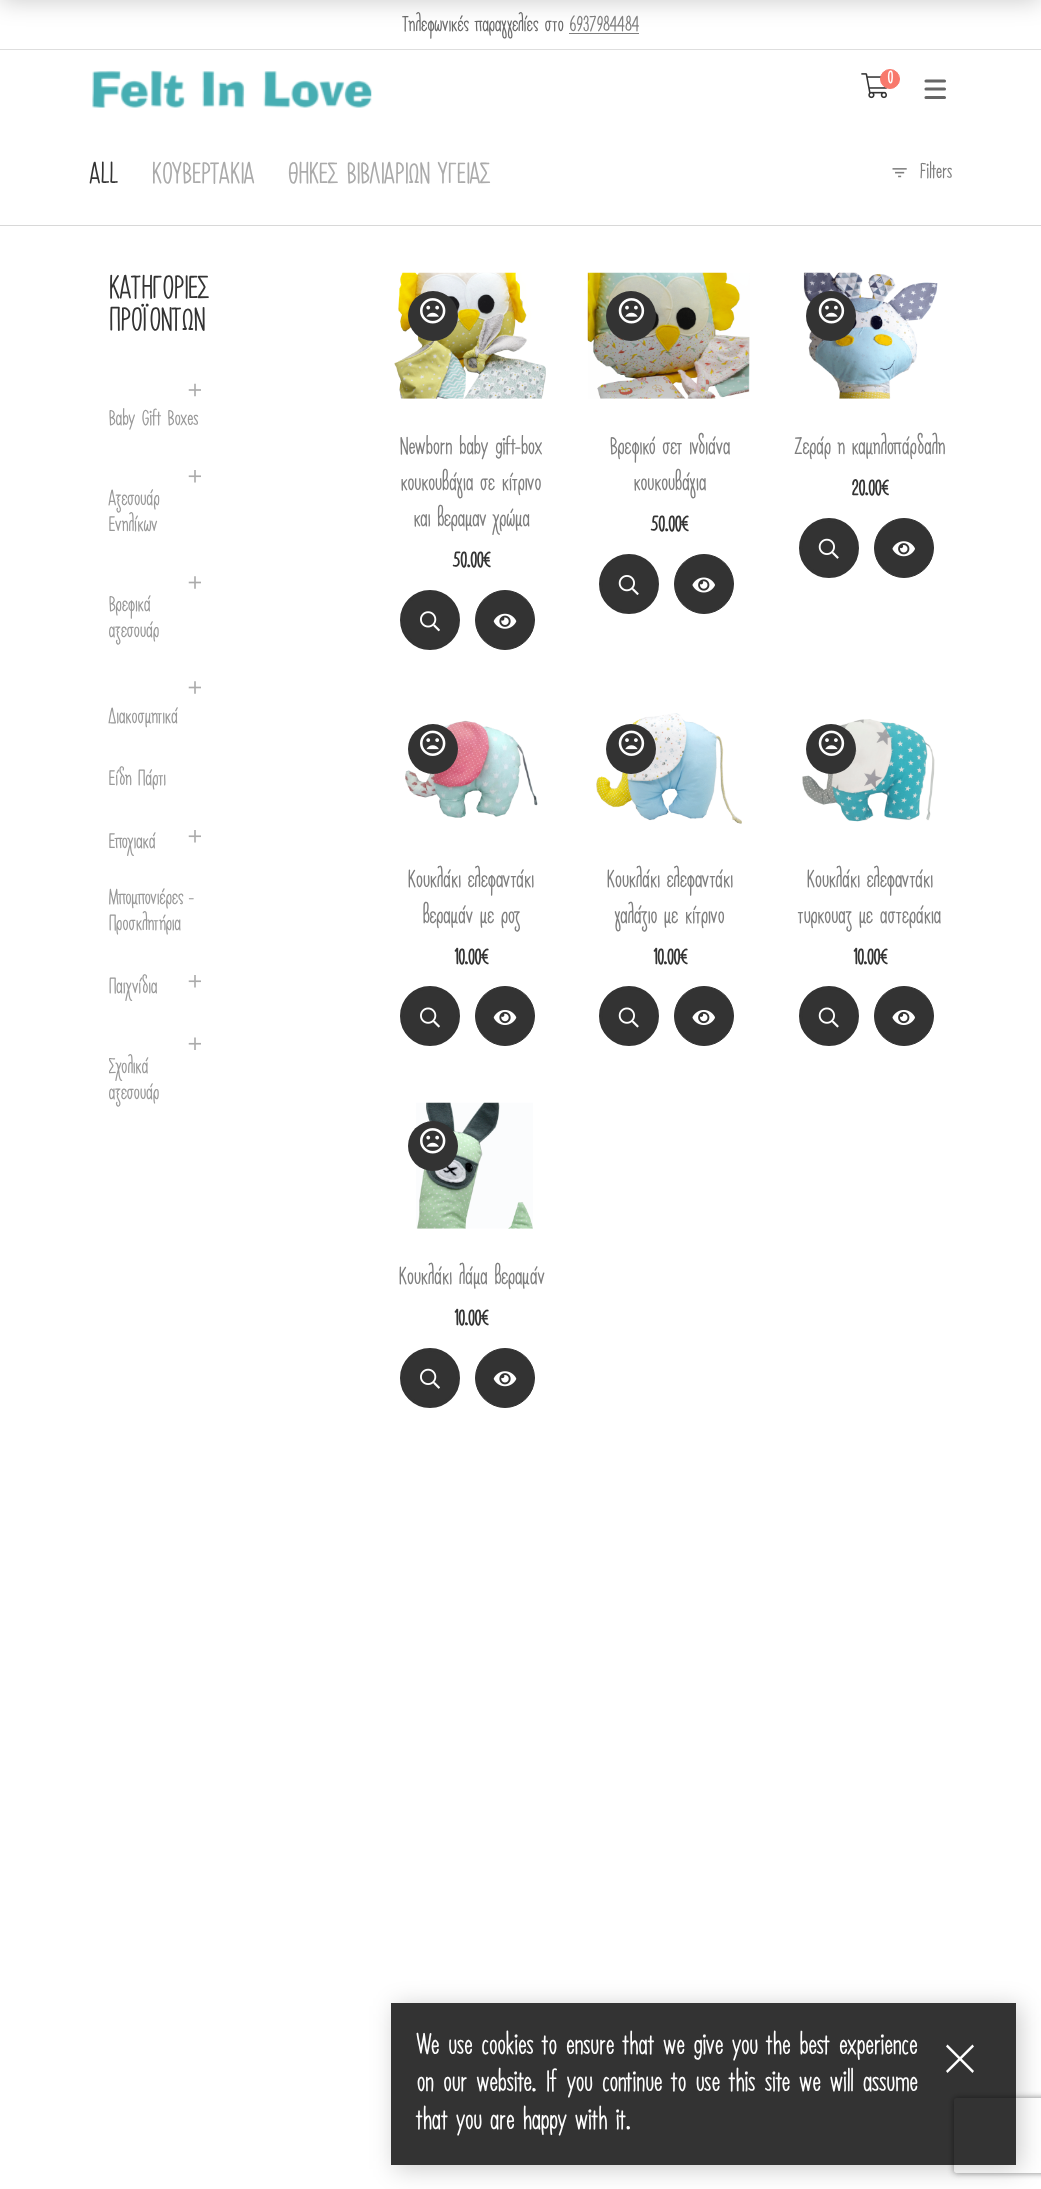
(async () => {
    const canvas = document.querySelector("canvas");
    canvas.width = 1041;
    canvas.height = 2189;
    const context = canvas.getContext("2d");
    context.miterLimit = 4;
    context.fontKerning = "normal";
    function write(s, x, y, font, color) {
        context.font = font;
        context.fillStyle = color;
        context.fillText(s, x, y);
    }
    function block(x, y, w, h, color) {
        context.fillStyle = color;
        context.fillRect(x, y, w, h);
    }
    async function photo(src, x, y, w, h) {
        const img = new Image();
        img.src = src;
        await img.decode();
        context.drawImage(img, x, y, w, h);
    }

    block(0, 0, 1041, 2189, "rgb(255, 255, 255)");
    block(569, 33, 70, 1, "rgb(126, 126, 126)");
    context.fillStyle = "rgba(0, 0, 0, 0.2)";
    context.filter = "blur(12.5px)";
    context.beginPath();
    context.rect(0, -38, 1041, 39);
    context.fill();
    context.filter = "none";
    block(0, 49, 1041, 1, "rgb(222, 222, 222)");
    write("Τηλεφωνικές παραγγελίες στο", 402, 31, "500 20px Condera", "rgb(105, 105, 105)");
    write("6937984484", 569, 31, "500 20px Condera", "rgb(126, 126, 126)");
    await photo("media/1.png", 92, 70, 280, 38);
    await photo("media/2.png", 861, 73, 26, 26);
    context.fillStyle = "rgb(248, 121, 108)";
    context.beginPath();
    context.arc(890, 79, 9.5, 0, Math.PI * 2);
    context.fill();
    context.strokeStyle = "rgb(248, 121, 108)";
    context.stroke();
    write("0", 887, 83, "bold 16px Condera", "rgb(255, 255, 255)");
    context.beginPath();
    context.moveTo(926, 81);
    context.lineTo(944.5, 81);
    context.moveTo(926, 89);
    context.lineTo(944.5, 89);
    context.moveTo(926, 97.5);
    context.lineTo(944.5, 97.5);
    context.strokeStyle = "rgb(102, 102, 102)";
    context.lineWidth = 3.1;
    context.lineCap = "round";
    context.stroke();
    block(0, 225, 1041, 1, "rgb(216, 216, 216)");
    write("ALL", 89, 183, "500 27.5px Condera", "rgb(51, 51, 51)");
    write("ΚΟΥΒΕΡΤΑΚΙΑ", 151, 183, "500 27.5px Condera", "rgb(171, 171, 171)");
    write("ΘΗΚΕΣ ΒΙΒΛΙΑΡΙΩΝ ΥΓΕΙΑΣ", 287, 183, "500 27.5px Condera", "rgb(171, 171, 171)");
    await photo("media/3.png", 892, 168, 15, 10);
    write("Filters", 919, 178, "500 20px Condera", "rgb(126, 126, 126)");
    write("ΚΑΤΗΓΟΡΙΕΣ", 108, 298, "500 30px Condera", "rgb(51, 51, 51)");
    write("ΠΡΟΪΟΝΤΩΝ", 108, 330, "500 30px Condera", "rgb(51, 51, 51)");
    await photo("media/4.png", 188, 383, 13, 14);
    write("Baby Gift Boxes", 108, 425, "500 20px Condera", "rgb(153, 153, 153)");
    await photo("media/5.png", 188, 470, 13, 13);
    write("Αξεσουάρ", 108, 505, "500 20px Condera", "rgb(153, 153, 153)");
    write("Ενηλίκων", 108, 531, "500 20px Condera", "rgb(153, 153, 153)");
    await photo("media/6.png", 188, 576, 13, 13);
    write("Βρεφικά", 108, 611, "500 20px Condera", "rgb(153, 153, 153)");
    write("αξεσουάρ", 108, 637, "500 20px Condera", "rgb(153, 153, 153)");
    await photo("media/6.png", 188, 681, 13, 13);
    write("Διακοσμητικά", 108, 723, "500 20px Condera", "rgb(153, 153, 153)");
    write("Είδη Πάρτι", 108, 785, "500 20px Condera", "rgb(153, 153, 153)");
    write("Εποχιακά", 108, 848, "500 20px Condera", "rgb(153, 153, 153)");
    await photo("media/5.png", 188, 830, 13, 13);
    write("Μπομπονιέρες -", 108, 904, "500 20px Condera", "rgb(153, 153, 153)");
    write("Προσκλητήρια", 108, 930, "500 20px Condera", "rgb(153, 153, 153)");
    write("Παιχνίδια", 108, 993, "500 20px Condera", "rgb(153, 153, 153)");
    await photo("media/5.png", 188, 975, 13, 13);
    await photo("media/7.png", 188, 1037, 13, 13);
    context.save();
    context.beginPath();
    context.rect(109, 376, 92, 748);
    context.clip();
    write("Σχολικά", 108, 1073, "500 20px Condera", "rgb(153, 153, 153)");
    context.restore();
    write("αξεσουάρ", 108, 1099, "500 20px Condera", "rgb(153, 153, 153)");
    await photo("media/8.png", 394, 272, 152, 127);
    context.fillStyle = "rgb(51, 51, 51)";
    context.beginPath();
    context.arc(433, 316, 25, 0, Math.PI * 2);
    context.fill();
    await photo("media/9.png", 420, 298, 26, 26);
    write("Newborn baby gift-box", 399, 454, "500 22.5px Condera", "rgb(126, 126, 126)");
    write("κουκουβάγια σε κίτρινο", 400, 490, "500 22.5px Condera", "rgb(126, 126, 126)");
    write("και βεραμαν χρώμα", 413, 526, "500 22.5px Condera", "rgb(126, 126, 126)");
    write("50.00€", 452, 567, "bold 20px Condera", "rgb(51, 51, 51)");
    context.beginPath();
    context.arc(430, 620, 28.5, 0, Math.PI * 2);
    context.fill();
    context.strokeStyle = "rgb(51, 51, 51)";
    context.lineWidth = 3;
    context.stroke();
    await photo("media/10.png", 420, 611, 20, 21);
    context.beginPath();
    context.arc(505, 620, 29.5, 0, Math.PI * 2);
    context.fill();
    context.lineWidth = 1;
    context.stroke();
    await photo("media/11.png", 493, 613, 24, 16);
    await photo("media/12.png", 587, 272, 163, 127);
    context.beginPath();
    context.arc(631, 316, 25, 0, Math.PI * 2);
    context.fill();
    await photo("media/13.png", 618, 298, 27, 26);
    write("Βρεφικό σετ ινδιάνα", 609, 454, "500 22.5px Condera", "rgb(126, 126, 126)");
    write("κουκουβάγια", 633, 490, "500 22.5px Condera", "rgb(126, 126, 126)");
    write("50.00€", 650, 531, "bold 20px Condera", "rgb(51, 51, 51)");
    context.beginPath();
    context.arc(629, 584, 28.5, 0, Math.PI * 2);
    context.fill();
    context.lineWidth = 3;
    context.stroke();
    await photo("media/14.png", 618, 575, 21, 20);
    context.beginPath();
    context.arc(704, 584, 29.5, 0, Math.PI * 2);
    context.fill();
    context.lineWidth = 1;
    context.stroke();
    await photo("media/15.png", 692, 577, 23, 16);
    await photo("media/16.png", 803, 272, 135, 127);
    context.beginPath();
    context.arc(831, 316, 25, 0, Math.PI * 2);
    context.fill();
    await photo("media/13.png", 818, 298, 27, 26);
    write("Ζεράρ η καμηλοπάρδαλη", 794, 454, "500 22.5px Condera", "rgb(126, 126, 126)");
    write("20.00€", 851, 495, "bold 20px Condera", "rgb(51, 51, 51)");
    context.beginPath();
    context.arc(829, 548, 28.5, 0, Math.PI * 2);
    context.fill();
    context.lineWidth = 3;
    context.stroke();
    await photo("media/17.png", 818, 538, 21, 21);
    context.beginPath();
    context.arc(904, 548, 29.5, 0, Math.PI * 2);
    context.fill();
    context.lineWidth = 1;
    context.stroke();
    await photo("media/18.png", 892, 541, 23, 16);
    await photo("media/19.png", 405, 720, 133, 98);
    context.beginPath();
    context.arc(433, 749, 25, 0, Math.PI * 2);
    context.fill();
    await photo("media/20.png", 420, 730, 26, 26);
    write("Κουκλάκι ελεφαντάκι", 407, 887, "500 22.5px Condera", "rgb(126, 126, 126)");
    write("βεραμάν με ροζ", 422, 923, "500 22.5px Condera", "rgb(126, 126, 126)");
    write("10.00€", 453, 964, "bold 20px Condera", "rgb(51, 51, 51)");
    context.beginPath();
    context.arc(430, 1016, 28.5, 0, Math.PI * 2);
    context.fill();
    context.lineWidth = 3;
    context.stroke();
    await photo("media/21.png", 420, 1007, 20, 21);
    context.beginPath();
    context.arc(505, 1016, 29.5, 0, Math.PI * 2);
    context.fill();
    context.lineWidth = 1;
    context.stroke();
    await photo("media/22.png", 493, 1010, 24, 15);
    await photo("media/23.png", 596, 713, 146, 111);
    context.beginPath();
    context.arc(631, 749, 25, 0, Math.PI * 2);
    context.fill();
    await photo("media/24.png", 618, 730, 27, 26);
    write("Κουκλάκι ελεφαντάκι", 606, 887, "500 22.5px Condera", "rgb(126, 126, 126)");
    write("γαλάζιο με κίτρινο", 615, 923, "500 22.5px Condera", "rgb(126, 126, 126)");
    write("10.00€", 652, 964, "bold 20px Condera", "rgb(51, 51, 51)");
    context.beginPath();
    context.arc(629, 1016, 28.5, 0, Math.PI * 2);
    context.fill();
    context.lineWidth = 3;
    context.stroke();
    await photo("media/25.png", 618, 1007, 21, 21);
    context.beginPath();
    context.arc(704, 1016, 29.5, 0, Math.PI * 2);
    context.fill();
    context.lineWidth = 1;
    context.stroke();
    await photo("media/26.png", 692, 1010, 23, 15);
    await photo("media/27.png", 802, 719, 133, 103);
    context.beginPath();
    context.arc(831, 749, 25, 0, Math.PI * 2);
    context.fill();
    await photo("media/24.png", 818, 730, 27, 26);
    write("Κουκλάκι ελεφαντάκι", 806, 887, "500 22.5px Condera", "rgb(126, 126, 126)");
    write("τυρκουαζ με αστεράκια", 798, 923, "500 22.5px Condera", "rgb(126, 126, 126)");
    write("10.00€", 852, 964, "bold 20px Condera", "rgb(51, 51, 51)");
    context.beginPath();
    context.arc(829, 1016, 28.5, 0, Math.PI * 2);
    context.fill();
    context.lineWidth = 3;
    context.stroke();
    await photo("media/25.png", 818, 1007, 21, 21);
    context.beginPath();
    context.arc(904, 1016, 29.5, 0, Math.PI * 2);
    context.fill();
    context.lineWidth = 1;
    context.stroke();
    await photo("media/26.png", 892, 1010, 23, 15);
    await photo("media/28.png", 416, 1102, 117, 127);
    context.beginPath();
    context.arc(433, 1146, 25, 0, Math.PI * 2);
    context.fill();
    await photo("media/9.png", 420, 1128, 26, 26);
    write("Κουκλάκι λάμα βεραμάν", 398, 1284, "500 22.5px Condera", "rgb(126, 126, 126)");
    write("10.00€", 453, 1325, "bold 20px Condera", "rgb(51, 51, 51)");
    context.beginPath();
    context.arc(430, 1378, 28.5, 0, Math.PI * 2);
    context.fill();
    context.lineWidth = 3;
    context.stroke();
    await photo("media/29.png", 420, 1368, 20, 21);
    context.beginPath();
    context.arc(505, 1378, 29.5, 0, Math.PI * 2);
    context.fill();
    context.lineWidth = 1;
    context.stroke();
    await photo("media/30.png", 493, 1371, 24, 16);
    context.save();
    context.beginPath();
    context.moveTo(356, 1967);
    context.lineTo(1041, 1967);
    context.lineTo(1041, 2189);
    context.lineTo(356, 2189);
    context.closePath();
    context.moveTo(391, 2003);
    context.lineTo(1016, 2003);
    context.lineTo(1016, 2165);
    context.lineTo(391, 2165);
    context.closePath();
    context.clip("evenodd");
    context.fillStyle = "rgba(0, 0, 0, 0.2)";
    context.filter = "blur(12.5px)";
    context.beginPath();
    context.rect(395, 2006, 625, 163);
    context.fill();
    context.filter = "none";
    context.restore();
    context.save();
    context.beginPath();
    context.moveTo(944, 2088);
    context.lineTo(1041, 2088);
    context.lineTo(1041, 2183);
    context.lineTo(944, 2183);
    context.closePath();
    context.moveTo(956.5, 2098);
    context.lineTo(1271.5, 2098);
    context.bezierCurveTo(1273, 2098, 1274, 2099, 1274, 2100.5);
    context.lineTo(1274, 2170.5);
    context.bezierCurveTo(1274, 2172, 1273, 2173, 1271.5, 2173);
    context.lineTo(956.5, 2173);
    context.bezierCurveTo(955, 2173, 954, 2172, 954, 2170.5);
    context.lineTo(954, 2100.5);
    context.bezierCurveTo(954, 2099, 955, 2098, 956.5, 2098);
    context.closePath();
    context.clip("evenodd");
    context.fillStyle = "rgb(128, 128, 128)";
    context.filter = "blur(3px)";
    context.beginPath();
    context.roundRect(954, 2098, 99, 75, 2.5);
    context.fill();
    context.filter = "none";
    context.restore();
    block(391, 2003, 625, 162, "rgba(0, 0, 0, 0.8)");
    context.wordSpacing = "0.75px";
    write("We use cookies to ensure that we give you the best experience", 416, 2054, "500 27.5px Condera", "rgb(255, 255, 255)");
    context.wordSpacing = "1.25px";
    write("on our website. If you continue to use this site we will assume", 416, 2091, "500 27.5px Condera", "rgb(255, 255, 255)");
    context.wordSpacing = "0px";
    write("that you are happy with it.", 416, 2129, "500 27.5px Condera", "rgb(255, 255, 255)");
    context.beginPath();
    context.moveTo(946, 2071);
    context.lineTo(972.5, 2044.5);
    context.lineTo(974, 2046.5);
    context.lineTo(947.5, 2073);
    context.closePath();
    context.fill();
    context.beginPath();
    context.moveTo(972.5, 2073);
    context.lineTo(946, 2046.5);
    context.lineTo(947.5, 2044.5);
    context.lineTo(974, 2071);
    context.closePath();
    context.fill();
})();
